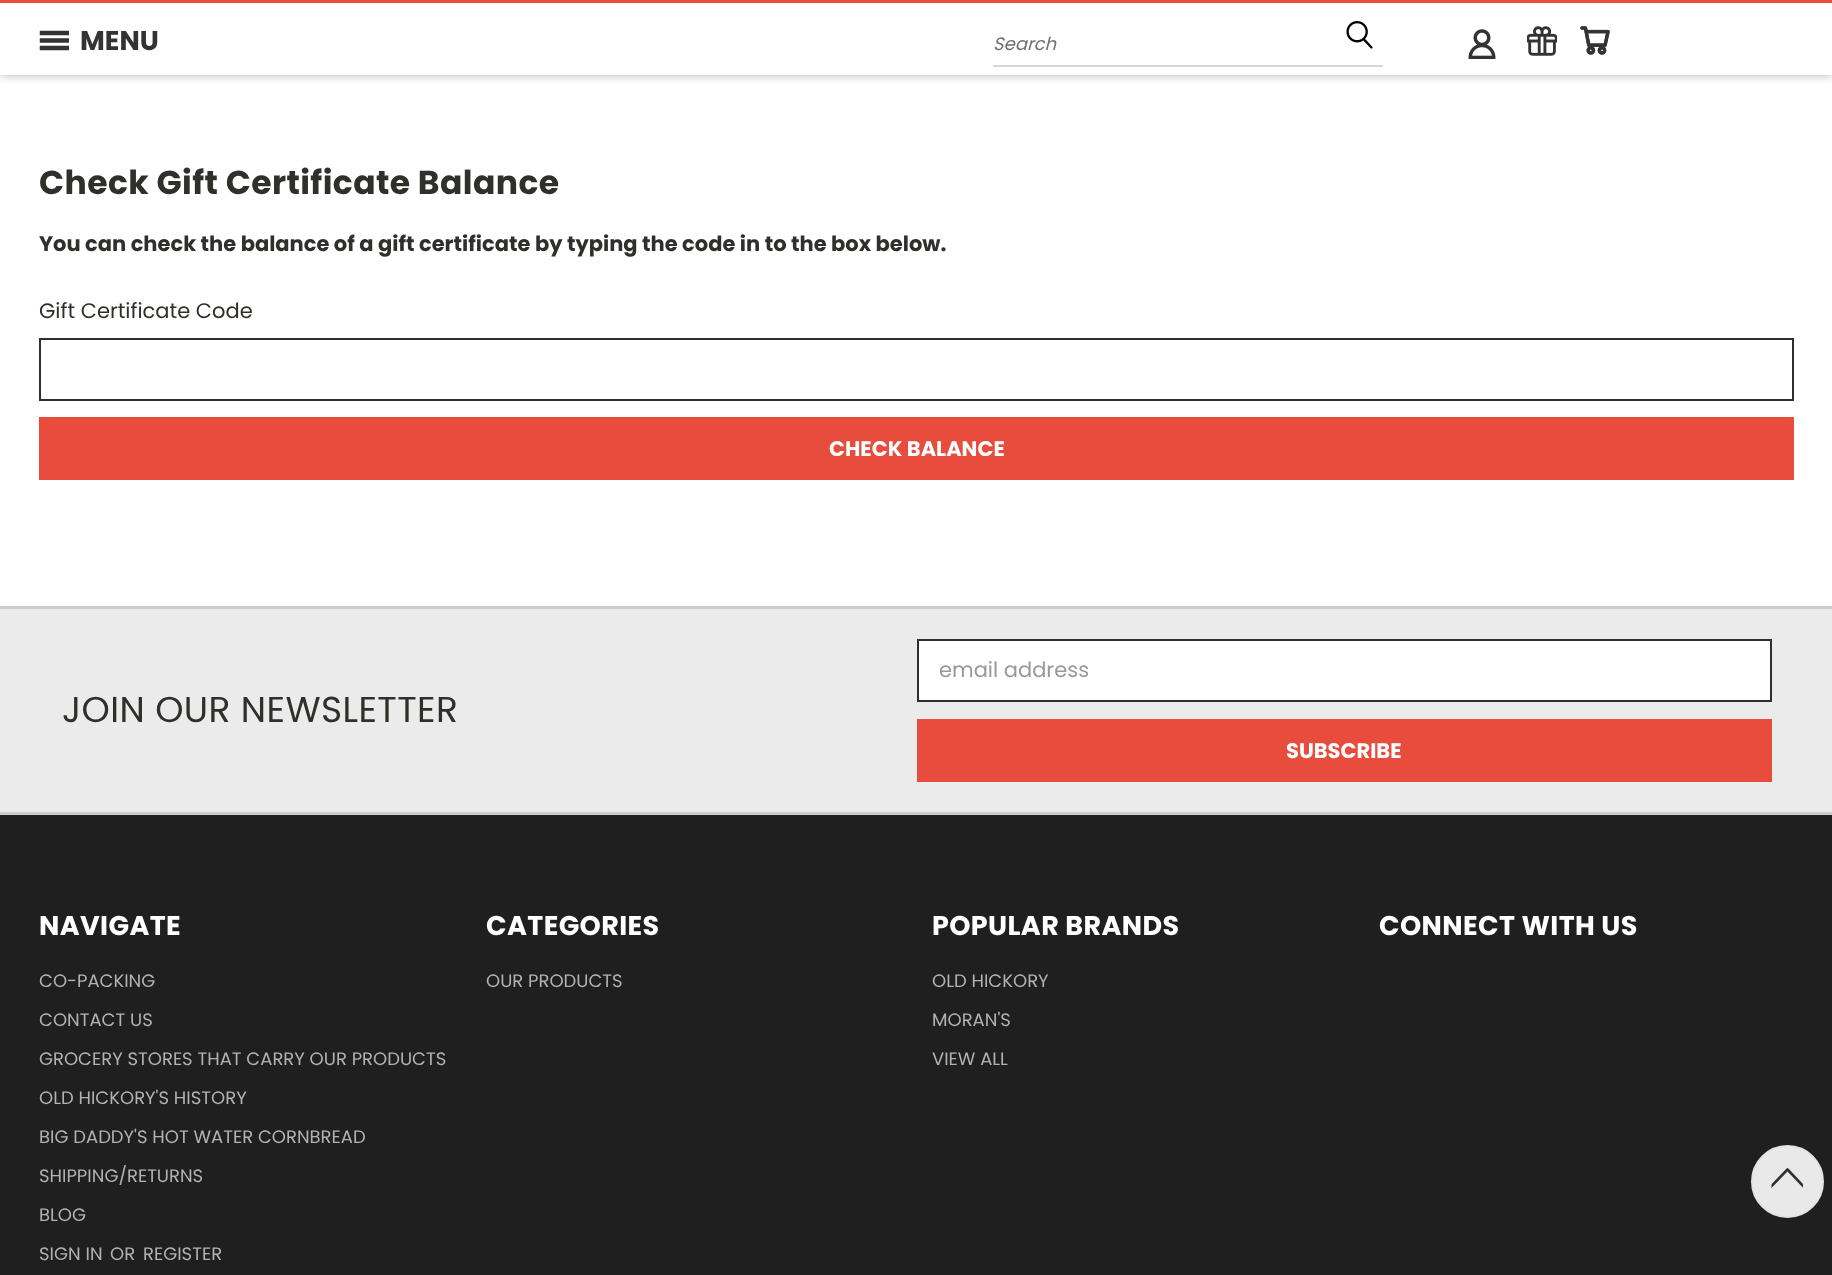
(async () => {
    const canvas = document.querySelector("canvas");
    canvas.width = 1832;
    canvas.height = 1275;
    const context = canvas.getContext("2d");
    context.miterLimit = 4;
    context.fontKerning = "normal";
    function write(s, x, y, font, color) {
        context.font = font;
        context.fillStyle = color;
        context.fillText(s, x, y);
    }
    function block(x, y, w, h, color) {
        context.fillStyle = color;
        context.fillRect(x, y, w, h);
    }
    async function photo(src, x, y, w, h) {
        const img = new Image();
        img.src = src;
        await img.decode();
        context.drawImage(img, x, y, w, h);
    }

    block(0, 0, 1832, 1275, "rgb(255, 255, 255)");
    context.fillStyle = "rgba(0, 0, 0, 0.3)";
    context.filter = "blur(5px)";
    context.beginPath();
    context.rect(0, 0, 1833, 75);
    context.fill();
    context.filter = "none";
    block(0, 3, 1832, 72, "rgb(255, 255, 255)");
    block(0, 0, 1832, 3, "rgb(231, 76, 60)");
    await photo("media/1.png", 39, 30, 30, 21);
    write("MENU", 80, 50, "bold 27px Poppins", "rgb(51, 51, 51)");
    block(993, 65, 390, 2, "rgb(215, 215, 215)");
    write("Search", 993, 50, "italic 18px Poppins", "rgb(112, 112, 110)");
    await photo("media/2.png", 1346, 21, 27, 28);
    await photo("media/3.png", 1468, 29, 28, 30);
    await photo("media/4.png", 1527, 26, 30, 30);
    await photo("media/5.png", 1580, 26, 30, 29);
    context.letterSpacing = "0.4px";
    write("Check Gift Certificate Balance", 39, 194, "bold 33px Poppins", "rgb(47, 47, 43)");
    context.letterSpacing = "0px";
    write("You can check the balance of a gift certificate by typing the code in to the box below.", 39, 251, "bold 21px Poppins", "rgb(47, 47, 43)");
    write("Gift Certificate Code", 39, 318, "21px Poppins", "rgb(47, 47, 43)");
    context.strokeStyle = "rgb(47, 47, 43)";
    context.lineWidth = 2;
    context.strokeRect(40, 339, 1753, 61);
    block(39, 417, 1755, 63, "rgb(231, 76, 60)");
    write("CHECK BALANCE", 829, 456, "bold 21px Poppins", "rgb(255, 255, 255)");
    block(0, 609, 1832, 203, "rgb(235, 235, 235)");
    block(0, 606, 1832, 3, "rgb(205, 204, 204)");
    context.letterSpacing = "0.4px";
    write("JOIN OUR NEWSLETTER", 62, 722, "36px Poppins", "rgb(47, 47, 43)");
    context.fillStyle = "rgb(255, 255, 255)";
    context.beginPath();
    context.rect(918, 640, 853, 61);
    context.fill();
    context.stroke();
    context.letterSpacing = "0px";
    write("email address", 939, 677, "21px Poppins", "rgb(153, 153, 153)");
    block(917, 719, 855, 63, "rgb(231, 76, 60)");
    write("SUBSCRIBE", 1286, 758, "bold 21px Poppins", "rgb(255, 255, 255)");
    block(0, 815, 1832, 460, "rgb(31, 31, 31)");
    block(0, 812, 1832, 3, "rgb(205, 204, 204)");
    context.letterSpacing = "0.4px";
    write("NAVIGATE", 39, 935, "bold 27px Poppins", "rgb(255, 255, 255)");
    context.letterSpacing = "0px";
    write("CO-PACKING", 39, 987, "18px Poppins", "rgb(178, 178, 178)");
    write("CONTACT US", 39, 1026, "18px Poppins", "rgb(178, 178, 178)");
    write("GROCERY STORES THAT CARRY OUR PRODUCTS", 39, 1065, "18px Poppins", "rgb(178, 178, 178)");
    write("OLD HICKORY'S HISTORY", 39, 1104, "18px Poppins", "rgb(178, 178, 178)");
    write("BIG DADDY'S HOT WATER CORNBREAD", 39, 1143, "18px Poppins", "rgb(178, 178, 178)");
    write("SHIPPING/RETURNS", 39, 1182, "18px Poppins", "rgb(178, 178, 178)");
    write("BLOG", 39, 1221, "18px Poppins", "rgb(178, 178, 178)");
    write("SIGN IN", 39, 1260, "18px Poppins", "rgb(178, 178, 178)");
    write("OR", 110, 1260, "18px Poppins", "rgb(178, 178, 178)");
    write("REGISTER", 143, 1260, "18px Poppins", "rgb(178, 178, 178)");
    context.letterSpacing = "0.4px";
    write("CATEGORIES", 486, 935, "bold 27px Poppins", "rgb(255, 255, 255)");
    context.letterSpacing = "0px";
    write("OUR PRODUCTS", 486, 987, "18px Poppins", "rgb(178, 178, 178)");
    context.letterSpacing = "0.4px";
    write("POPULAR BRANDS", 932, 935, "bold 27px Poppins", "rgb(255, 255, 255)");
    context.letterSpacing = "0px";
    write("OLD HICKORY", 932, 987, "18px Poppins", "rgb(178, 178, 178)");
    write("MORAN'S", 932, 1026, "18px Poppins", "rgb(178, 178, 178)");
    write("VIEW ALL", 932, 1065, "18px Poppins", "rgb(178, 178, 178)");
    context.letterSpacing = "0.4px";
    write("CONNECT WITH US", 1379, 935, "bold 27px Poppins", "rgb(255, 255, 255)");
    context.fillStyle = "rgb(233, 233, 233)";
    context.beginPath();
    context.arc(1787.5, 1181.5, 35.5, 0, Math.PI * 2);
    context.fill();
    context.strokeStyle = "rgb(228, 227, 225)";
    context.stroke();
    context.save();
    context.beginPath();
    context.moveTo(1803, 1168);
    context.lineTo(1803, 1199);
    context.lineTo(1771.5, 1199);
    context.lineTo(1771.5, 1168);
    context.closePath();
    context.clip();
    context.beginPath();
    context.moveTo(1813.5, 1197);
    context.lineTo(1787.5, 1169.5);
    context.lineTo(1761, 1197);
    context.strokeStyle = "rgb(49, 49, 49)";
    context.lineWidth = 2.6;
    context.lineCap = "round";
    context.lineJoin = "round";
    context.stroke();
    context.restore();
})();
